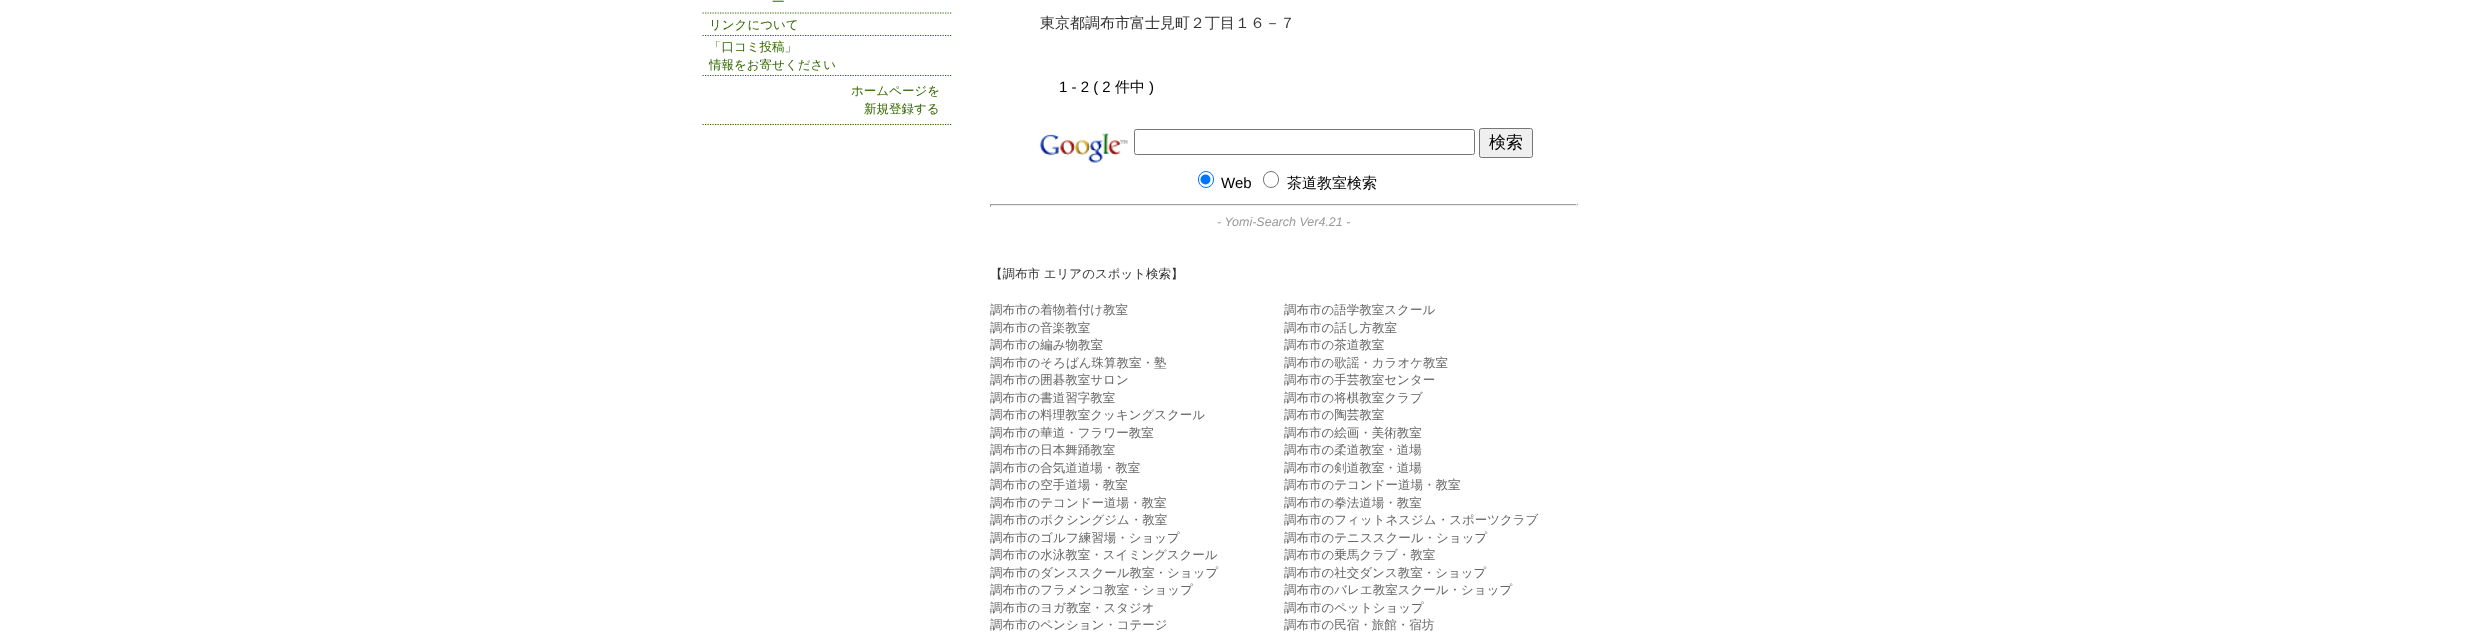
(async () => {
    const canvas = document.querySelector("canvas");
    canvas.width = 2467;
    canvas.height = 636;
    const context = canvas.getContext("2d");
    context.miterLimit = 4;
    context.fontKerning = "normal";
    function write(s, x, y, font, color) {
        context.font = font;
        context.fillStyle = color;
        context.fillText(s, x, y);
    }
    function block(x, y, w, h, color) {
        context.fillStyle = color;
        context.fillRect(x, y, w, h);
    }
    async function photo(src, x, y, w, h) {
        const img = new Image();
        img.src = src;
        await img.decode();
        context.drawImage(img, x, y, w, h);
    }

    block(0, 0, 2467, 636, "rgb(255, 255, 255)");
    context.beginPath();
    context.moveTo(702.5, 13);
    context.lineTo(952.5, 13);
    context.strokeStyle = "rgb(51, 102, 0)";
    context.lineWidth = 1.2;
    context.setLineDash([1.25, 1.25]);
    context.stroke();
    write("一", 772, 6, "500 12.5px WenQuanYi Zen Hei", "rgb(51, 102, 0)");
    context.beginPath();
    context.moveTo(702.5, 35.5);
    context.lineTo(952.5, 35.5);
    context.stroke();
    write("リンクについて", 709, 29, "500 12.5px WenQuanYi Zen Hei", "rgb(51, 102, 0)");
    context.beginPath();
    context.moveTo(702.5, 75.5);
    context.lineTo(952.5, 75.5);
    context.stroke();
    write("「口コミ投稿」", 709, 51, "500 12.5px WenQuanYi Zen Hei", "rgb(51, 102, 0)");
    write("情報をお寄せください", 709, 69, "500 12.5px WenQuanYi Zen Hei", "rgb(51, 102, 0)");
    context.beginPath();
    context.moveTo(702.5, 124.5);
    context.lineTo(952.5, 124.5);
    context.stroke();
    write("ホームページを", 851, 95, "500 12.5px WenQuanYi Zen Hei", "rgb(51, 102, 0)");
    write("新規登録する", 864, 113, "500 12.5px WenQuanYi Zen Hei", "rgb(51, 102, 0)");
    write("東京都調布市富士見町２丁目１６－７", 1040, 28, "500 15px WenQuanYi Zen Hei", "rgb(51, 51, 51)");
    write("1 - 2 ( 2", 1059, 92, "15px Liberation Sans", "rgb(0, 0, 0)");
    write("件中", 1115, 92, "500 15px WenQuanYi Zen Hei", "rgb(0, 0, 0)");
    write(")", 1149, 92, "15px Liberation Sans", "rgb(0, 0, 0)");
    await photo("media/1.png", 1039, 133, 89, 30);
    context.beginPath();
    context.roundRect(1134.5, 129.5, 340, 25, 2);
    context.strokeStyle = "rgb(118, 118, 118)";
    context.lineWidth = 1;
    context.setLineDash([]);
    context.stroke();
    context.fillStyle = "rgb(239, 239, 239)";
    context.beginPath();
    context.roundRect(1479.5, 128.5, 53, 29, 2);
    context.fill();
    context.stroke();
    write("検索", 1489, 148, "500 17px WenQuanYi Zen Hei", "rgb(0, 0, 0)");
    context.beginPath();
    context.roundRect(1198.5, 171.5, 15, 16, 7.5);
    context.strokeStyle = "rgb(0, 117, 255)";
    context.stroke();
    context.fillStyle = "rgb(0, 117, 255)";
    context.beginPath();
    context.arc(1205.5, 179.5, 5, 0, Math.PI * 2);
    context.fill();
    write("Web", 1221, 188, "15px Liberation Sans", "rgb(0, 0, 0)");
    context.beginPath();
    context.roundRect(1263.5, 171.5, 15, 16, 7.5);
    context.strokeStyle = "rgb(118, 118, 118)";
    context.stroke();
    write("茶道教室検索", 1287, 188, "500 15px WenQuanYi Zen Hei", "rgb(0, 0, 0)");
    block(990, 204, 588, 1, "rgb(159, 159, 159)");
    block(1576, 204, 1, 3, "rgb(238, 238, 238)");
    block(990, 205, 588, 1, "rgb(238, 238, 238)");
    block(990, 204, 1, 3, "rgb(159, 159, 159)");
    write("- Yomi-Search Ver4.21 -", 1217, 226, "italic 12.5px Liberation Sans", "rgb(153, 153, 153)");
    write("【調布市 エリアのスポット検索】", 990, 278, "500 12.5px WenQuanYi Zen Hei", "rgb(51, 51, 51)");
    write("調布市の着物着付け教室", 990, 314, "500 12.5px WenQuanYi Zen Hei", "rgb(102, 102, 102)");
    write("調布市の語学教室スクール", 1284, 314, "500 12.5px WenQuanYi Zen Hei", "rgb(102, 102, 102)");
    write("調布市の音楽教室", 990, 332, "500 12.5px WenQuanYi Zen Hei", "rgb(102, 102, 102)");
    write("調布市の話し方教室", 1284, 332, "500 12.5px WenQuanYi Zen Hei", "rgb(102, 102, 102)");
    write("調布市の編み物教室", 990, 349, "500 12.5px WenQuanYi Zen Hei", "rgb(102, 102, 102)");
    write("調布市の茶道教室", 1284, 349, "500 12.5px WenQuanYi Zen Hei", "rgb(102, 102, 102)");
    write("調布市のそろばん珠算教室・塾", 990, 367, "500 12.5px WenQuanYi Zen Hei", "rgb(102, 102, 102)");
    write("調布市の歌謡・カラオケ教室", 1284, 367, "500 12.5px WenQuanYi Zen Hei", "rgb(102, 102, 102)");
    write("調布市の囲碁教室サロン", 990, 384, "500 12.5px WenQuanYi Zen Hei", "rgb(102, 102, 102)");
    write("調布市の手芸教室センター", 1284, 384, "500 12.5px WenQuanYi Zen Hei", "rgb(102, 102, 102)");
    write("調布市の書道習字教室", 990, 402, "500 12.5px WenQuanYi Zen Hei", "rgb(102, 102, 102)");
    write("調布市の将棋教室クラブ", 1284, 402, "500 12.5px WenQuanYi Zen Hei", "rgb(102, 102, 102)");
    write("調布市の料理教室クッキングスクール", 990, 419, "500 12.5px WenQuanYi Zen Hei", "rgb(102, 102, 102)");
    write("調布市の陶芸教室", 1284, 419, "500 12.5px WenQuanYi Zen Hei", "rgb(102, 102, 102)");
    write("調布市の華道・フラワー教室", 990, 437, "500 12.5px WenQuanYi Zen Hei", "rgb(102, 102, 102)");
    write("調布市の絵画・美術教室", 1284, 437, "500 12.5px WenQuanYi Zen Hei", "rgb(102, 102, 102)");
    write("調布市の日本舞踊教室", 990, 454, "500 12.5px WenQuanYi Zen Hei", "rgb(102, 102, 102)");
    write("調布市の柔道教室・道場", 1284, 454, "500 12.5px WenQuanYi Zen Hei", "rgb(102, 102, 102)");
    write("調布市の合気道道場・教室", 990, 472, "500 12.5px WenQuanYi Zen Hei", "rgb(102, 102, 102)");
    write("調布市の剣道教室・道場", 1284, 472, "500 12.5px WenQuanYi Zen Hei", "rgb(102, 102, 102)");
    write("調布市の空手道場・教室", 990, 489, "500 12.5px WenQuanYi Zen Hei", "rgb(102, 102, 102)");
    write("調布市のテコンドー道場・教室", 1284, 489, "500 12.5px WenQuanYi Zen Hei", "rgb(102, 102, 102)");
    write("調布市のテコンドー道場・教室", 990, 507, "500 12.5px WenQuanYi Zen Hei", "rgb(102, 102, 102)");
    write("調布市の拳法道場・教室", 1284, 507, "500 12.5px WenQuanYi Zen Hei", "rgb(102, 102, 102)");
    write("調布市のボクシングジム・教室", 990, 524, "500 12.5px WenQuanYi Zen Hei", "rgb(102, 102, 102)");
    write("調布市のフィットネスジム・スポーツクラブ", 1284, 524, "500 12.5px WenQuanYi Zen Hei", "rgb(102, 102, 102)");
    write("調布市のゴルフ練習場・ショップ", 990, 542, "500 12.5px WenQuanYi Zen Hei", "rgb(102, 102, 102)");
    write("調布市のテニススクール・ショップ", 1284, 542, "500 12.5px WenQuanYi Zen Hei", "rgb(102, 102, 102)");
    write("調布市の水泳教室・スイミングスクール", 990, 559, "500 12.5px WenQuanYi Zen Hei", "rgb(102, 102, 102)");
    write("調布市の乗馬クラブ・教室", 1284, 559, "500 12.5px WenQuanYi Zen Hei", "rgb(102, 102, 102)");
    write("調布市のダンススクール教室・ショップ", 990, 577, "500 12.5px WenQuanYi Zen Hei", "rgb(102, 102, 102)");
    write("調布市の社交ダンス教室・ショップ", 1284, 577, "500 12.5px WenQuanYi Zen Hei", "rgb(102, 102, 102)");
    write("調布市のフラメンコ教室・ショップ", 990, 594, "500 12.5px WenQuanYi Zen Hei", "rgb(102, 102, 102)");
    write("調布市のバレエ教室スクール・ショップ", 1284, 594, "500 12.5px WenQuanYi Zen Hei", "rgb(102, 102, 102)");
    write("調布市のヨガ教室・スタジオ", 990, 612, "500 12.5px WenQuanYi Zen Hei", "rgb(102, 102, 102)");
    write("調布市のペットショップ", 1284, 612, "500 12.5px WenQuanYi Zen Hei", "rgb(102, 102, 102)");
    write("調布市のペンション・コテージ", 990, 629, "500 12.5px WenQuanYi Zen Hei", "rgb(102, 102, 102)");
    write("調布市の民宿・旅館・宿坊", 1284, 629, "500 12.5px WenQuanYi Zen Hei", "rgb(102, 102, 102)");
})();
